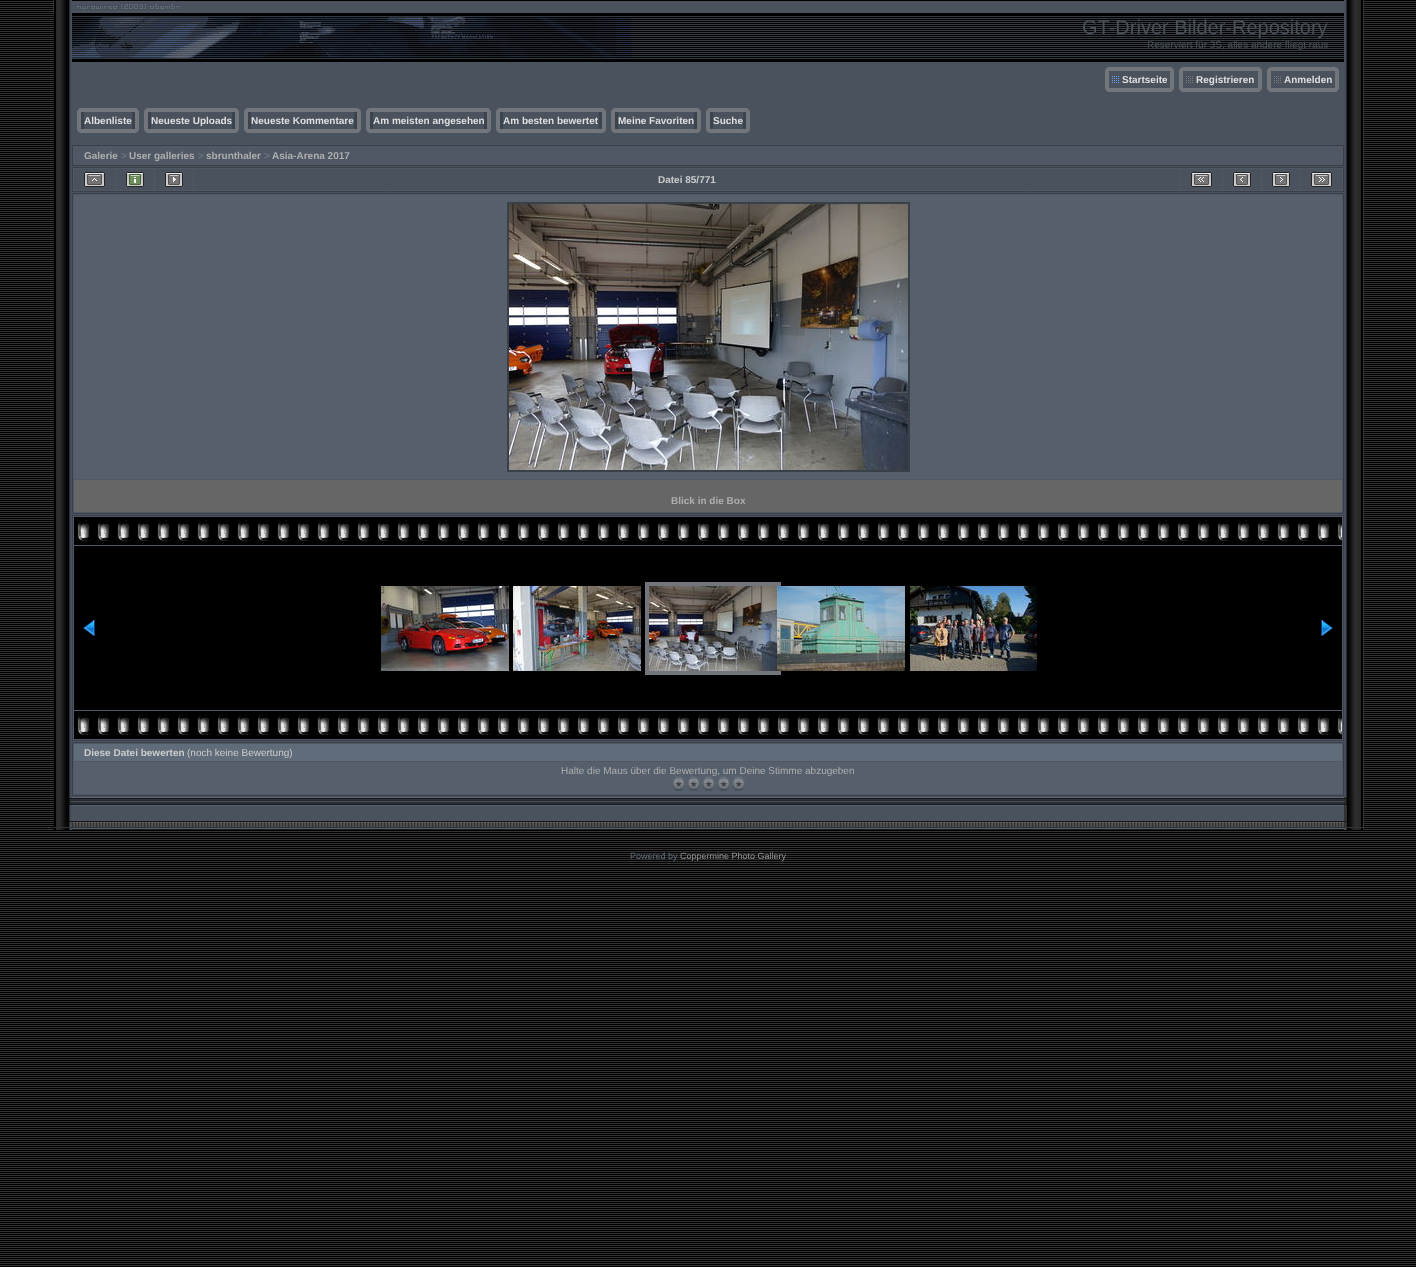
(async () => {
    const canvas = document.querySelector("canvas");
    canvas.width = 1416;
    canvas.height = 1267;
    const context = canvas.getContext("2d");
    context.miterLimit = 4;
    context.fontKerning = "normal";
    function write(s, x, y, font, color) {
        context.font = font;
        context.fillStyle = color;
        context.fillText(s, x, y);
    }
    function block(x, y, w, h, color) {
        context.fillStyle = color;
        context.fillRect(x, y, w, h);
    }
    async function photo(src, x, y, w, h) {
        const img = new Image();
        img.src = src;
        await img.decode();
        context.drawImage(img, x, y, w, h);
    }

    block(0, 0, 1416, 1267, "rgb(0, 0, 0)");
    await photo("media/1.png", 0, 1, 1416, 1265);
    block(53, 0, 1, 13, "rgb(51, 51, 51)");
    await photo("media/2.png", 54, 0, 18, 62);
    await photo("media/3.png", 72, 1, 1272, 61);
    await photo("media/4.png", 72, 3, 561, 55);
    write("GT-Driver Bilder-Repository", 1082, 34, "20px Liberation Sans", "rgb(76, 81, 87)");
    write("Reserviert für 3S, alles andere fliegt raus", 1147, 48, "10px Liberation Sans", "rgb(76, 81, 87)");
    await photo("media/5.png", 1344, 0, 19, 62);
    block(1363, 0, 1, 829, "rgb(51, 51, 51)");
    await photo("media/6.png", 54, 62, 18, 735);
    block(72, 62, 1272, 735, "rgb(73, 82, 93)");
    await photo("media/7.png", 1105, 67, 17, 25);
    await photo("media/8.png", 1122, 67, 45, 25);
    write("Startseite", 1122, 83, "bold 10px Liberation Sans", "rgb(223, 223, 223)");
    await photo("media/9.png", 1167, 67, 7, 25);
    await photo("media/10.png", 1179, 67, 17, 25);
    await photo("media/11.png", 1196, 67, 59, 25);
    write("Registrieren", 1196, 83, "bold 10px Liberation Sans", "rgb(223, 223, 223)");
    await photo("media/9.png", 1255, 67, 7, 25);
    await photo("media/10.png", 1267, 67, 17, 25);
    await photo("media/12.png", 1284, 67, 48, 25);
    write("Anmelden", 1284, 83, "bold 10px Liberation Sans", "rgb(223, 223, 223)");
    await photo("media/9.png", 1332, 67, 7, 25);
    await photo("media/13.png", 77, 108, 7, 25);
    await photo("media/12.png", 84, 108, 48, 25);
    write("Albenliste", 84, 124, "bold 10px Liberation Sans", "rgb(223, 223, 223)");
    await photo("media/14.png", 132, 108, 7, 25);
    await photo("media/13.png", 144, 108, 7, 25);
    await photo("media/15.png", 151, 108, 81, 25);
    write("Neueste Uploads", 151, 124, "bold 10px Liberation Sans", "rgb(223, 223, 223)");
    await photo("media/14.png", 232, 108, 7, 25);
    await photo("media/13.png", 244, 108, 7, 25);
    await photo("media/16.png", 251, 108, 103, 25);
    write("Neueste Kommentare", 251, 124, "bold 10px Liberation Sans", "rgb(223, 223, 223)");
    await photo("media/14.png", 354, 108, 7, 25);
    await photo("media/13.png", 366, 108, 7, 25);
    await photo("media/17.png", 373, 108, 111, 25);
    write("Am meisten angesehen", 373, 124, "bold 10px Liberation Sans", "rgb(223, 223, 223)");
    await photo("media/14.png", 484, 108, 7, 25);
    await photo("media/13.png", 496, 108, 7, 25);
    await photo("media/18.png", 503, 108, 96, 25);
    write("Am besten bewertet", 503, 124, "bold 10px Liberation Sans", "rgb(223, 223, 223)");
    await photo("media/14.png", 599, 108, 7, 25);
    await photo("media/13.png", 611, 108, 7, 25);
    await photo("media/19.png", 618, 108, 76, 25);
    write("Meine Favoriten", 618, 124, "bold 10px Liberation Sans", "rgb(223, 223, 223)");
    await photo("media/14.png", 694, 108, 7, 25);
    await photo("media/13.png", 706, 108, 7, 25);
    await photo("media/20.png", 713, 108, 30, 25);
    write("Suche", 713, 124, "bold 10px Liberation Sans", "rgb(223, 223, 223)");
    await photo("media/14.png", 743, 108, 7, 25);
    context.fillStyle = "rgb(79, 88, 100)";
    context.beginPath();
    context.rect(72.5, 145.5, 1271, 20);
    context.fill();
    context.strokeStyle = "rgb(57, 64, 73)";
    context.stroke();
    write("Galerie", 84, 159, "bold 10px Liberation Sans", "rgb(174, 174, 174)");
    write(">", 121, 159, "bold 10px Liberation Sans", "rgb(106, 119, 134)");
    write("User galleries", 129, 159, "bold 10px Liberation Sans", "rgb(174, 174, 174)");
    write(">", 198, 159, "bold 10px Liberation Sans", "rgb(106, 119, 134)");
    write("sbrunthaler", 206, 159, "bold 10px Liberation Sans", "rgb(174, 174, 174)");
    write(">", 264, 159, "bold 10px Liberation Sans", "rgb(106, 119, 134)");
    write("Asia-Arena 2017", 272, 159, "bold 10px Liberation Sans", "rgb(174, 174, 174)");
    context.fillStyle = "rgb(79, 88, 100)";
    context.beginPath();
    context.rect(72.5, 167.5, 1271, 24);
    context.fill();
    context.stroke();
    block(74, 169, 41, 21, "rgb(73, 82, 93)");
    await photo("media/21.png", 84, 172, 21, 15);
    block(116, 169, 38, 21, "rgb(73, 82, 93)");
    await photo("media/22.png", 126, 172, 18, 15);
    block(155, 169, 38, 21, "rgb(73, 82, 93)");
    await photo("media/23.png", 165, 172, 18, 15);
    block(194, 169, 986, 21, "rgb(73, 82, 93)");
    write("Datei 85/771", 658, 183, "bold 10px Liberation Sans", "rgb(204, 204, 204)");
    block(1181, 169, 41, 21, "rgb(73, 82, 93)");
    await photo("media/24.png", 1191, 172, 21, 15);
    block(1223, 169, 38, 21, "rgb(73, 82, 93)");
    await photo("media/25.png", 1233, 172, 18, 15);
    block(1262, 169, 38, 21, "rgb(73, 82, 93)");
    await photo("media/26.png", 1272, 172, 18, 15);
    block(1301, 169, 41, 21, "rgb(73, 82, 93)");
    await photo("media/27.png", 1311, 172, 21, 15);
    context.fillStyle = "rgb(79, 88, 100)";
    context.beginPath();
    context.rect(72.5, 193.5, 1271, 320);
    context.fill();
    context.stroke();
    block(74, 195, 1268, 284, "rgb(86, 96, 109)");
    context.strokeStyle = "rgb(57, 64, 72)";
    context.lineWidth = 2;
    context.strokeRect(508, 203, 401, 268);
    await photo("media/28.png", 509, 204, 399, 266);
    block(74, 480, 1268, 32, "rgb(102, 102, 102)");
    write("Blick in die Box", 671, 504, "bold 10px Liberation Sans", "rgb(174, 174, 174)");
    context.fillStyle = "rgb(79, 88, 100)";
    context.beginPath();
    context.rect(72.5, 515.5, 1271, 225);
    context.fill();
    context.strokeStyle = "rgb(57, 64, 73)";
    context.lineWidth = 1;
    context.stroke();
    block(74, 517, 1268, 28, "rgb(0, 0, 0)");
    await photo("media/29.png", 77, 517, 1265, 24);
    block(74, 546, 1268, 164, "rgb(0, 0, 0)");
    await photo("media/30.png", 83, 620, 12, 16);
    await photo("media/31.png", 381, 586, 128, 85);
    await photo("media/32.png", 513, 586, 128, 85);
    context.strokeStyle = "rgb(114, 118, 124)";
    context.lineWidth = 4;
    context.strokeRect(647, 584, 132, 89);
    await photo("media/33.png", 649, 586, 128, 85);
    await photo("media/34.png", 777, 586, 128, 85);
    await photo("media/35.png", 910, 586, 127, 85);
    await photo("media/36.png", 1321, 620, 12, 16);
    block(74, 711, 1268, 28, "rgb(0, 0, 0)");
    await photo("media/29.png", 77, 711, 1265, 24);
    context.fillStyle = "rgb(79, 88, 100)";
    context.beginPath();
    context.rect(72.5, 742.5, 1271, 53);
    context.fill();
    context.strokeStyle = "rgb(57, 64, 73)";
    context.lineWidth = 1;
    context.stroke();
    block(74, 744, 1268, 17, "rgb(97, 108, 122)");
    write("Diese Datei bewerten", 84, 756, "bold 10px Liberation Sans", "rgb(204, 204, 204)");
    write("(noch keine Bewertung)", 187, 756, "10px Liberation Sans", "rgb(204, 204, 204)");
    block(74, 762, 1268, 32, "rgb(86, 96, 109)");
    write("Halte die Maus über die Bewertung, um Deine Stimme abzugeben", 561, 774, "10px Liberation Sans", "rgb(174, 174, 174)");
    await photo("media/37.png", 671, 776, 15, 15);
    await photo("media/37.png", 686, 776, 15, 15);
    await photo("media/38.png", 701, 776, 15, 15);
    await photo("media/37.png", 716, 776, 15, 15);
    await photo("media/37.png", 731, 776, 15, 15);
    await photo("media/39.png", 1344, 62, 19, 735);
    await photo("media/40.png", 54, 828, 18, 2);
    await photo("media/41.png", 54, 797, 18, 31);
    await photo("media/42.png", 72, 797, 1272, 33);
    await photo("media/43.png", 1344, 828, 19, 2);
    await photo("media/44.png", 1344, 797, 19, 31);
    write("Powered by", 630, 859, "9px Liberation Sans", "rgb(97, 108, 122)");
    write("Coppermine Photo Gallery", 680, 859, "9px Liberation Sans", "rgb(148, 148, 148)");
})();
